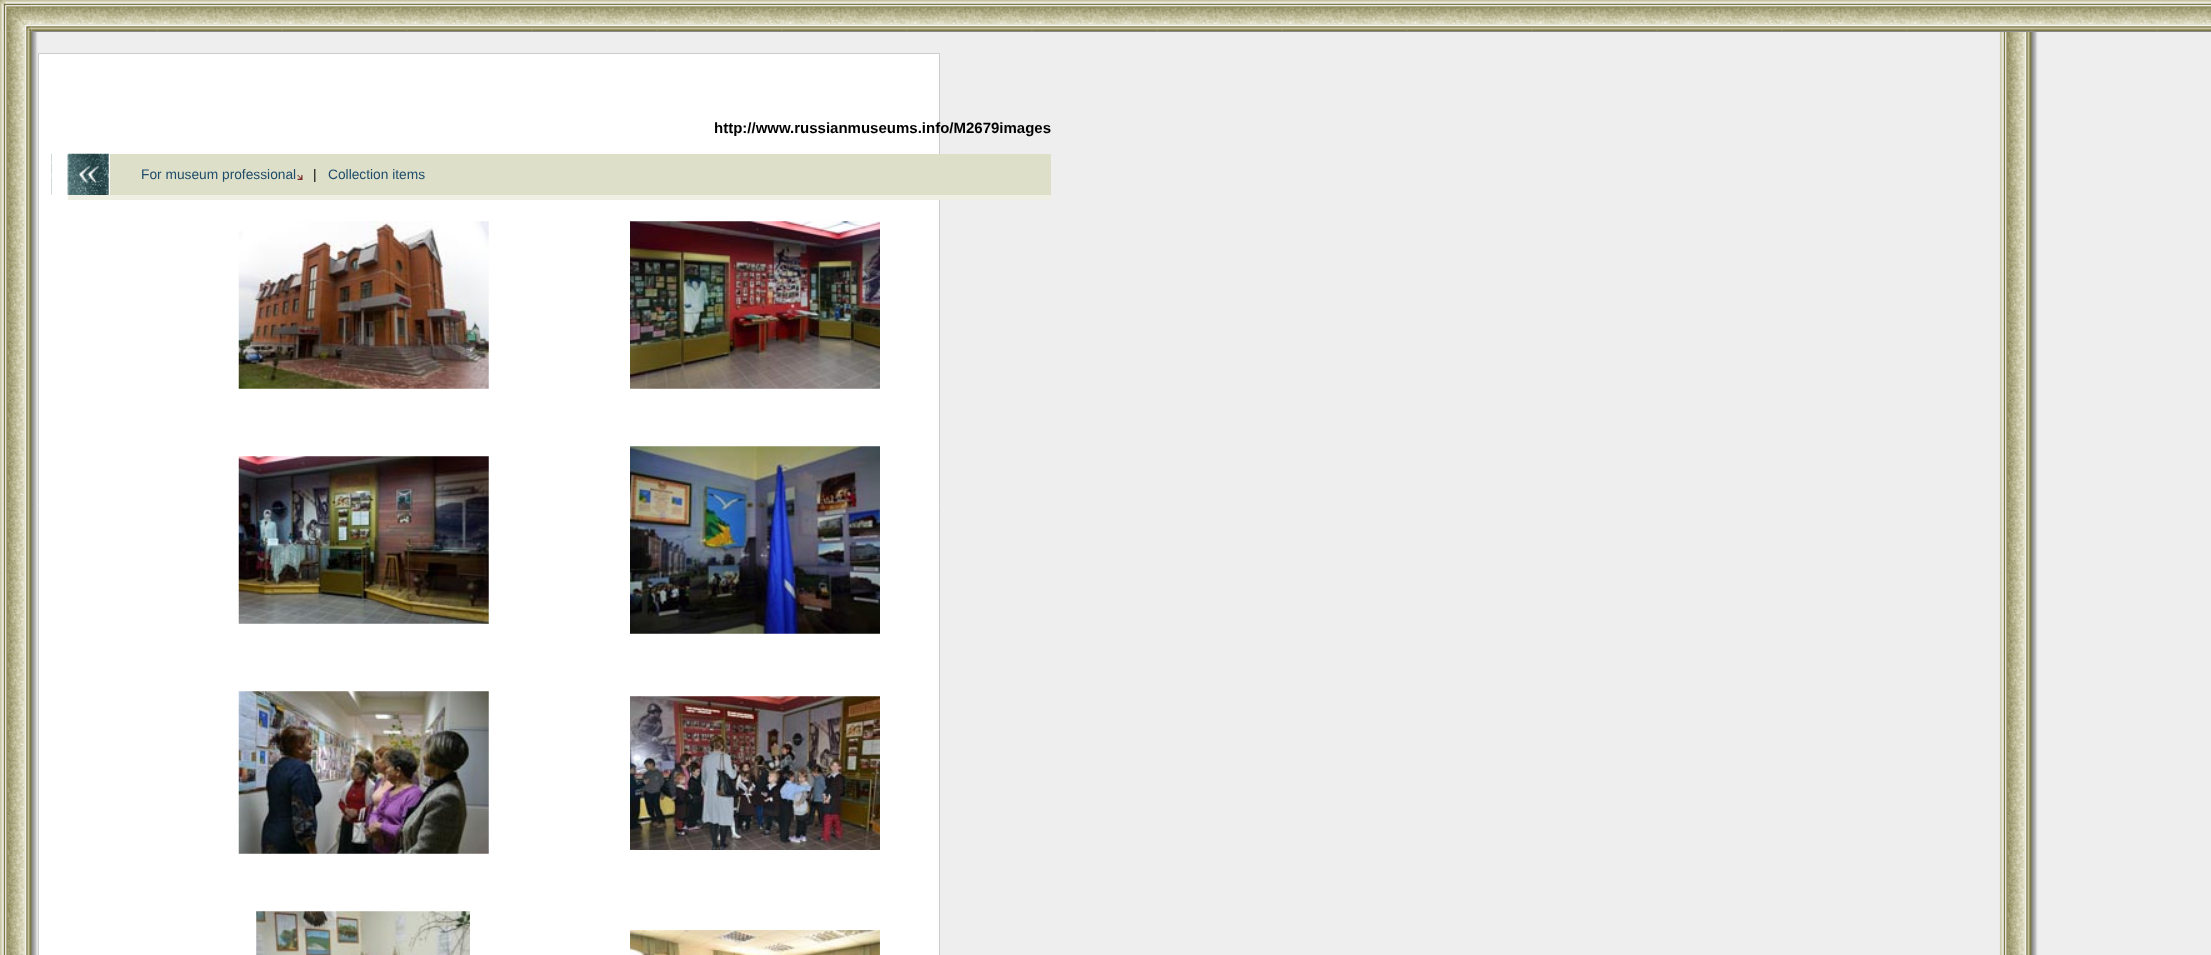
(async () => {
    const canvas = document.querySelector("canvas");
    canvas.width = 2211;
    canvas.height = 955;
    const context = canvas.getContext("2d");
    context.miterLimit = 4;
    context.fontKerning = "normal";
    function write(s, x, y, font, color) {
        context.font = font;
        context.fillStyle = color;
        context.fillText(s, x, y);
    }
    function block(x, y, w, h, color) {
        context.fillStyle = color;
        context.fillRect(x, y, w, h);
    }
    async function photo(src, x, y, w, h) {
        const img = new Image();
        img.src = src;
        await img.decode();
        context.drawImage(img, x, y, w, h);
    }

    block(0, 0, 2211, 955, "rgb(255, 255, 255)");
    await photo("media/1.png", 0, 0, 2211, 955);
    await photo("media/2.png", 0, 0, 32, 32);
    await photo("media/3.png", 31, 0, 2180, 31);
    block(31, 31, 2180, 1, "rgb(136, 136, 136)");
    context.fillStyle = "rgb(255, 255, 255)";
    context.beginPath();
    context.rect(38.5, 53.5, 901, 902);
    context.fill();
    context.strokeStyle = "rgb(204, 204, 204)";
    context.stroke();
    write("http://www.russianmuseums.info/M2679images", 714, 133, "bold 15px Liberation Sans", "rgb(0, 0, 0)");
    await photo("media/4.png", 51, 153, 58, 42);
    block(110, 154, 941, 41, "rgb(222, 223, 201)");
    write("For museum professional", 141, 179, "13.75px Liberation Sans", "rgb(30, 76, 106)");
    await photo("media/5.png", 297, 174, 6, 6);
    write("|", 313, 179, "13.75px Liberation Sans", "rgb(0, 0, 0)");
    write("Collection items", 328, 179, "13.75px Liberation Sans", "rgb(30, 76, 106)");
    block(68, 195, 983, 5, "rgb(239, 239, 228)");
    await photo("media/6.png", 238, 221, 251, 168);
    await photo("media/7.png", 630, 221, 250, 168);
    await photo("media/8.png", 238, 456, 251, 168);
    await photo("media/9.png", 630, 446, 250, 188);
    await photo("media/10.png", 238, 691, 251, 163);
    await photo("media/11.png", 630, 696, 250, 154);
    await photo("media/12.png", 256, 911, 214, 44);
    await photo("media/13.png", 630, 930, 250, 25);
})();
